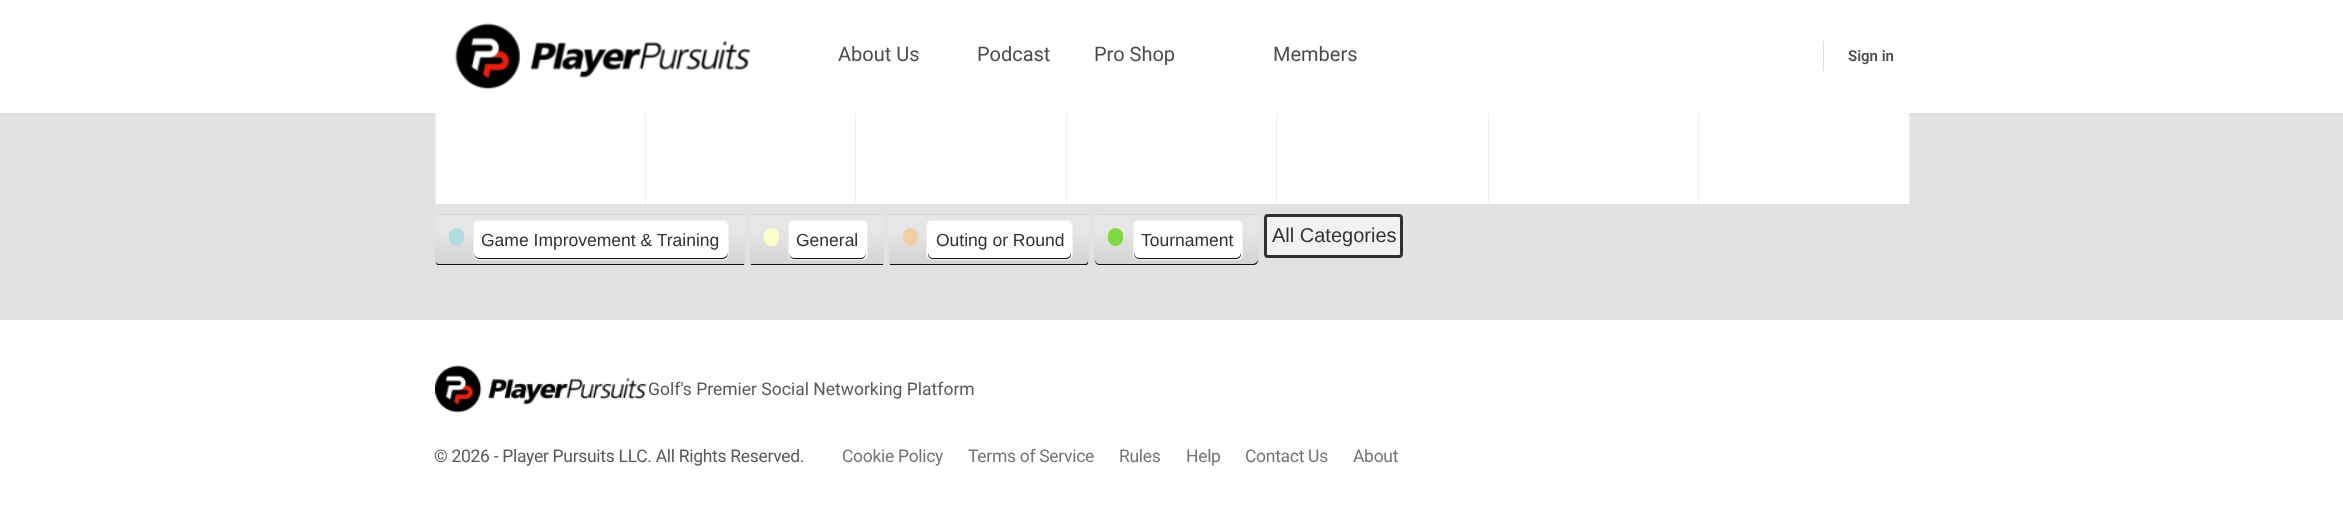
(async () => {
    const canvas = document.querySelector("canvas");
    canvas.width = 2343;
    canvas.height = 510;
    const context = canvas.getContext("2d");
    context.miterLimit = 4;
    context.fontKerning = "normal";
    function write(s, x, y, font, color) {
        context.font = font;
        context.fillStyle = color;
        context.fillText(s, x, y);
    }
    function block(x, y, w, h, color) {
        context.fillStyle = color;
        context.fillRect(x, y, w, h);
    }
    function card(x, y, w, h, r, color) {
        context.fillStyle = color;
        context.beginPath();
        context.roundRect(x, y, w, h, r);
        context.fill();
    }
    async function photo(src, x, y, w, h) {
        const img = new Image();
        img.src = src;
        await img.decode();
        context.drawImage(img, x, y, w, h);
    }
    let gradient;

    block(0, 0, 2343, 510, "rgb(226, 226, 226)");
    block(436, 113, 1473, 91, "rgb(255, 255, 255)");
    block(435, 113, 1, 91, "rgb(239, 239, 239)");
    block(645, 113, 1, 91, "rgb(239, 239, 239)");
    block(855, 113, 1, 91, "rgb(239, 239, 239)");
    block(1066, 113, 1, 91, "rgb(239, 239, 239)");
    block(1276, 113, 1, 91, "rgb(239, 239, 239)");
    block(1488, 113, 1, 91, "rgb(239, 239, 239)");
    block(1909, 113, 1, 91, "rgb(239, 239, 239)");
    block(1698, 113, 1, 91, "rgb(239, 239, 239)");
    context.fillStyle = "rgba(139, 141, 157, 0.05)";
    context.beginPath();
    context.moveTo(0, 112);
    context.lineTo(0, 114);
    context.lineTo(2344, 114);
    context.lineTo(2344, 1);
    context.lineTo(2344, 112);
    context.closePath();
    context.fill();
    block(0, 0, 2343, 113, "rgb(255, 255, 255)");
    await photo("media/1.png", 455, 23, 296, 66);
    write("About Us", 838, 61, "20px Roboto", "rgb(75, 78, 79)");
    write("Podcast", 977, 61, "20px Roboto", "rgb(75, 78, 79)");
    write("Pro Shop", 1094, 61, "20px Roboto", "rgb(75, 78, 79)");
    write("Members", 1273, 61, "20px Roboto", "rgb(75, 78, 79)");
    block(1823, 41, 1, 30, "rgb(219, 220, 220)");
    write("Sign in", 1848, 61, "600 15px Roboto", "rgb(75, 78, 79)");
    context.save();
    context.beginPath();
    context.roundRect(435, 214, 310, 52, [4, 0, 0, 4]);
    context.clip();
    gradient = context.createLinearGradient(590, 215, 590, 165);
    gradient.addColorStop(0, "rgb(211, 211, 211)");
    gradient.addColorStop(0.7, "rgb(230, 230, 230)");
    context.fillStyle = gradient;
    context.fillRect(435, 214, 310, 1);
    gradient = context.createLinearGradient(590, 265, 590, 215);
    gradient.addColorStop(0, "rgb(211, 211, 211)");
    gradient.addColorStop(0.7, "rgb(230, 230, 230)");
    context.fillStyle = gradient;
    context.fillRect(435, 215, 310, 50);
    gradient = context.createLinearGradient(590, 315, 590, 265);
    gradient.addColorStop(0, "rgb(211, 211, 211)");
    gradient.addColorStop(0.7, "rgb(230, 230, 230)");
    context.fillStyle = gradient;
    context.fillRect(435, 265, 310, 1);
    context.restore();
    context.fillStyle = "rgb(15, 15, 15)";
    context.beginPath();
    context.moveTo(436, 261);
    context.lineTo(436, 262);
    context.bezierCurveTo(436, 264, 437, 265, 438, 265);
    context.lineTo(744, 265);
    context.lineTo(744, 264);
    context.lineTo(439, 264);
    context.bezierCurveTo(437, 264, 436, 263, 436, 261);
    context.closePath();
    context.fill();
    card(449, 228, 15, 18, 7.5, "rgb(175, 221, 224)");
    card(473, 220, 256, 40, 6, "rgb(255, 255, 255)");
    context.fillStyle = "rgb(15, 15, 15)";
    context.beginPath();
    context.moveTo(474, 252);
    context.bezierCurveTo(474, 255, 475, 259, 479, 259);
    context.lineTo(723, 259);
    context.bezierCurveTo(727, 259, 728, 255, 728, 252);
    context.bezierCurveTo(728, 255, 725, 258, 722, 258);
    context.lineTo(479, 258);
    context.bezierCurveTo(476, 258, 474, 255, 474, 252);
    context.closePath();
    context.fill();
    context.beginPath();
    context.roundRect(473.5, 220.5, 255, 39, 5.5);
    context.strokeStyle = "rgb(239, 239, 239)";
    context.stroke();
    write("Game Improvement & Training", 481, 246, "17.5px Liberation Sans", "rgb(49, 50, 51)");
    gradient = context.createLinearGradient(817, 215, 817, 165);
    gradient.addColorStop(0, "rgb(211, 211, 211)");
    gradient.addColorStop(0.7, "rgb(230, 230, 230)");
    context.fillStyle = gradient;
    context.fillRect(750, 214, 134, 1);
    gradient = context.createLinearGradient(817, 265, 817, 215);
    gradient.addColorStop(0, "rgb(211, 211, 211)");
    gradient.addColorStop(0.7, "rgb(230, 230, 230)");
    context.fillStyle = gradient;
    context.fillRect(750, 215, 134, 50);
    gradient = context.createLinearGradient(817, 315, 817, 265);
    gradient.addColorStop(0, "rgb(211, 211, 211)");
    gradient.addColorStop(0.7, "rgb(230, 230, 230)");
    context.fillStyle = gradient;
    context.fillRect(750, 265, 134, 1);
    block(751, 264, 132, 1, "rgb(15, 15, 15)");
    card(764, 228, 15, 18, 7.5, "rgb(255, 255, 204)");
    card(788, 220, 80, 40, 6, "rgb(255, 255, 255)");
    context.fillStyle = "rgb(15, 15, 15)";
    context.beginPath();
    context.moveTo(789, 252);
    context.bezierCurveTo(789, 262, 797, 259, 805, 259);
    context.lineTo(850, 259);
    context.bezierCurveTo(858, 259, 866, 262, 866, 252);
    context.bezierCurveTo(866, 255, 864, 258, 861, 258);
    context.lineTo(794, 258);
    context.bezierCurveTo(791, 258, 789, 255, 789, 252);
    context.closePath();
    context.fill();
    context.beginPath();
    context.roundRect(788.5, 220.5, 79, 39, 5.5);
    context.stroke();
    write("General", 796, 246, "17.5px Liberation Sans", "rgb(49, 50, 51)");
    context.save();
    context.beginPath();
    context.roundRect(889, 214, 200, 52, [0, 4, 4, 0]);
    context.clip();
    gradient = context.createLinearGradient(989, 215, 989, 165);
    gradient.addColorStop(0, "rgb(211, 211, 211)");
    gradient.addColorStop(0.7, "rgb(230, 230, 230)");
    context.fillStyle = gradient;
    context.fillRect(889, 214, 200, 1);
    gradient = context.createLinearGradient(989, 265, 989, 215);
    gradient.addColorStop(0, "rgb(211, 211, 211)");
    gradient.addColorStop(0.7, "rgb(230, 230, 230)");
    context.fillStyle = gradient;
    context.fillRect(889, 215, 200, 50);
    gradient = context.createLinearGradient(989, 315, 989, 265);
    gradient.addColorStop(0, "rgb(211, 211, 211)");
    gradient.addColorStop(0.7, "rgb(230, 230, 230)");
    context.fillStyle = gradient;
    context.fillRect(889, 265, 200, 1);
    context.restore();
    context.fillStyle = "rgb(15, 15, 15)";
    context.beginPath();
    context.moveTo(890, 264);
    context.lineTo(890, 265);
    context.lineTo(1086, 265);
    context.bezierCurveTo(1088, 265, 1088, 263, 1088, 261);
    context.bezierCurveTo(1088, 263, 1086, 264, 1085, 264);
    context.closePath();
    context.fill();
    card(903, 228, 15, 18, 7.5, "rgb(242, 207, 162)");
    card(926, 220, 147, 40, 6, "rgb(255, 255, 255)");
    context.fillStyle = "rgb(15, 15, 15)";
    context.beginPath();
    context.moveTo(928, 252);
    context.lineTo(928, 254);
    context.bezierCurveTo(928, 257, 930, 259, 933, 259);
    context.lineTo(1066, 259);
    context.bezierCurveTo(1069, 259, 1071, 257, 1071, 254);
    context.lineTo(1071, 252);
    context.bezierCurveTo(1071, 255, 1069, 258, 1066, 258);
    context.lineTo(932, 258);
    context.bezierCurveTo(930, 258, 928, 255, 928, 252);
    context.closePath();
    context.fill();
    context.beginPath();
    context.roundRect(926.5, 220.5, 146, 39, 5.5);
    context.stroke();
    write("Outing or Round", 936, 246, "17.5px Liberation Sans", "rgb(49, 50, 51)");
    context.save();
    context.beginPath();
    context.roundRect(1094, 214, 165, 52, 6);
    context.clip();
    gradient = context.createLinearGradient(1176, 215, 1176, 165);
    gradient.addColorStop(0, "rgb(211, 211, 211)");
    gradient.addColorStop(0.7, "rgb(230, 230, 230)");
    context.fillStyle = gradient;
    context.fillRect(1094, 214, 165, 1);
    gradient = context.createLinearGradient(1176, 265, 1176, 215);
    gradient.addColorStop(0, "rgb(211, 211, 211)");
    gradient.addColorStop(0.7, "rgb(230, 230, 230)");
    context.fillStyle = gradient;
    context.fillRect(1094, 215, 165, 50);
    gradient = context.createLinearGradient(1176, 315, 1176, 265);
    gradient.addColorStop(0, "rgb(211, 211, 211)");
    gradient.addColorStop(0.7, "rgb(230, 230, 230)");
    context.fillStyle = gradient;
    context.fillRect(1094, 265, 165, 1);
    context.restore();
    context.fillStyle = "rgb(15, 15, 15)";
    context.beginPath();
    context.moveTo(1095, 259);
    context.lineTo(1095, 260);
    context.bezierCurveTo(1095, 263, 1097, 265, 1100, 265);
    context.lineTo(1253, 265);
    context.bezierCurveTo(1256, 265, 1258, 263, 1258, 260);
    context.lineTo(1258, 259);
    context.bezierCurveTo(1258, 262, 1255, 264, 1252, 264);
    context.lineTo(1100, 264);
    context.bezierCurveTo(1097, 264, 1095, 262, 1095, 259);
    context.closePath();
    context.fill();
    card(1108, 228, 15, 18, 7.5, "rgb(129, 215, 66)");
    card(1133, 220, 110, 40, 6, "rgb(255, 255, 255)");
    context.fillStyle = "rgb(15, 15, 15)";
    context.beginPath();
    context.moveTo(1134, 252);
    context.lineTo(1134, 254);
    context.bezierCurveTo(1134, 257, 1136, 259, 1139, 259);
    context.lineTo(1236, 259);
    context.bezierCurveTo(1239, 259, 1241, 257, 1241, 254);
    context.lineTo(1241, 252);
    context.bezierCurveTo(1241, 255, 1239, 258, 1236, 258);
    context.lineTo(1139, 258);
    context.bezierCurveTo(1136, 258, 1134, 255, 1134, 252);
    context.closePath();
    context.fill();
    context.beginPath();
    context.roundRect(1133.5, 220.5, 109, 39, 5.5);
    context.stroke();
    write("Tournament", 1141, 246, "17.5px Liberation Sans", "rgb(49, 50, 51)");
    card(1264, 214, 139, 44, 4, "rgb(242, 242, 242)");
    context.beginPath();
    context.roundRect(1265.5, 215.5, 136, 41, 2.5);
    context.strokeStyle = "rgb(47, 48, 48)";
    context.lineWidth = 3;
    context.stroke();
    write("All Categories", 1272, 242, "20px Liberation Sans", "rgb(49, 50, 51)");
    block(0, 320, 2343, 190, "rgb(255, 255, 255)");
    await photo("media/2.png", 435, 365, 212, 48);
    write("Golf's Premier Social Networking Platform", 648, 395, "17.5px Roboto", "rgb(90, 90, 90)");
    context.letterSpacing = "-0.3px";
    write("© 2026 - Player Pursuits LLC. All Rights Reserved.", 434, 462, "17.5px Roboto", "rgb(90, 90, 90)");
    write("Cookie Policy", 842, 462, "17.5px Roboto", "rgb(113, 117, 121)");
    write("Terms of Service", 968, 462, "17.5px Roboto", "rgb(113, 117, 121)");
    write("Rules", 1119, 462, "17.5px Roboto", "rgb(113, 117, 121)");
    write("Help", 1186, 462, "17.5px Roboto", "rgb(113, 117, 121)");
    write("Contact Us", 1245, 462, "17.5px Roboto", "rgb(113, 117, 121)");
    write("About", 1353, 462, "17.5px Roboto", "rgb(113, 117, 121)");
})();
